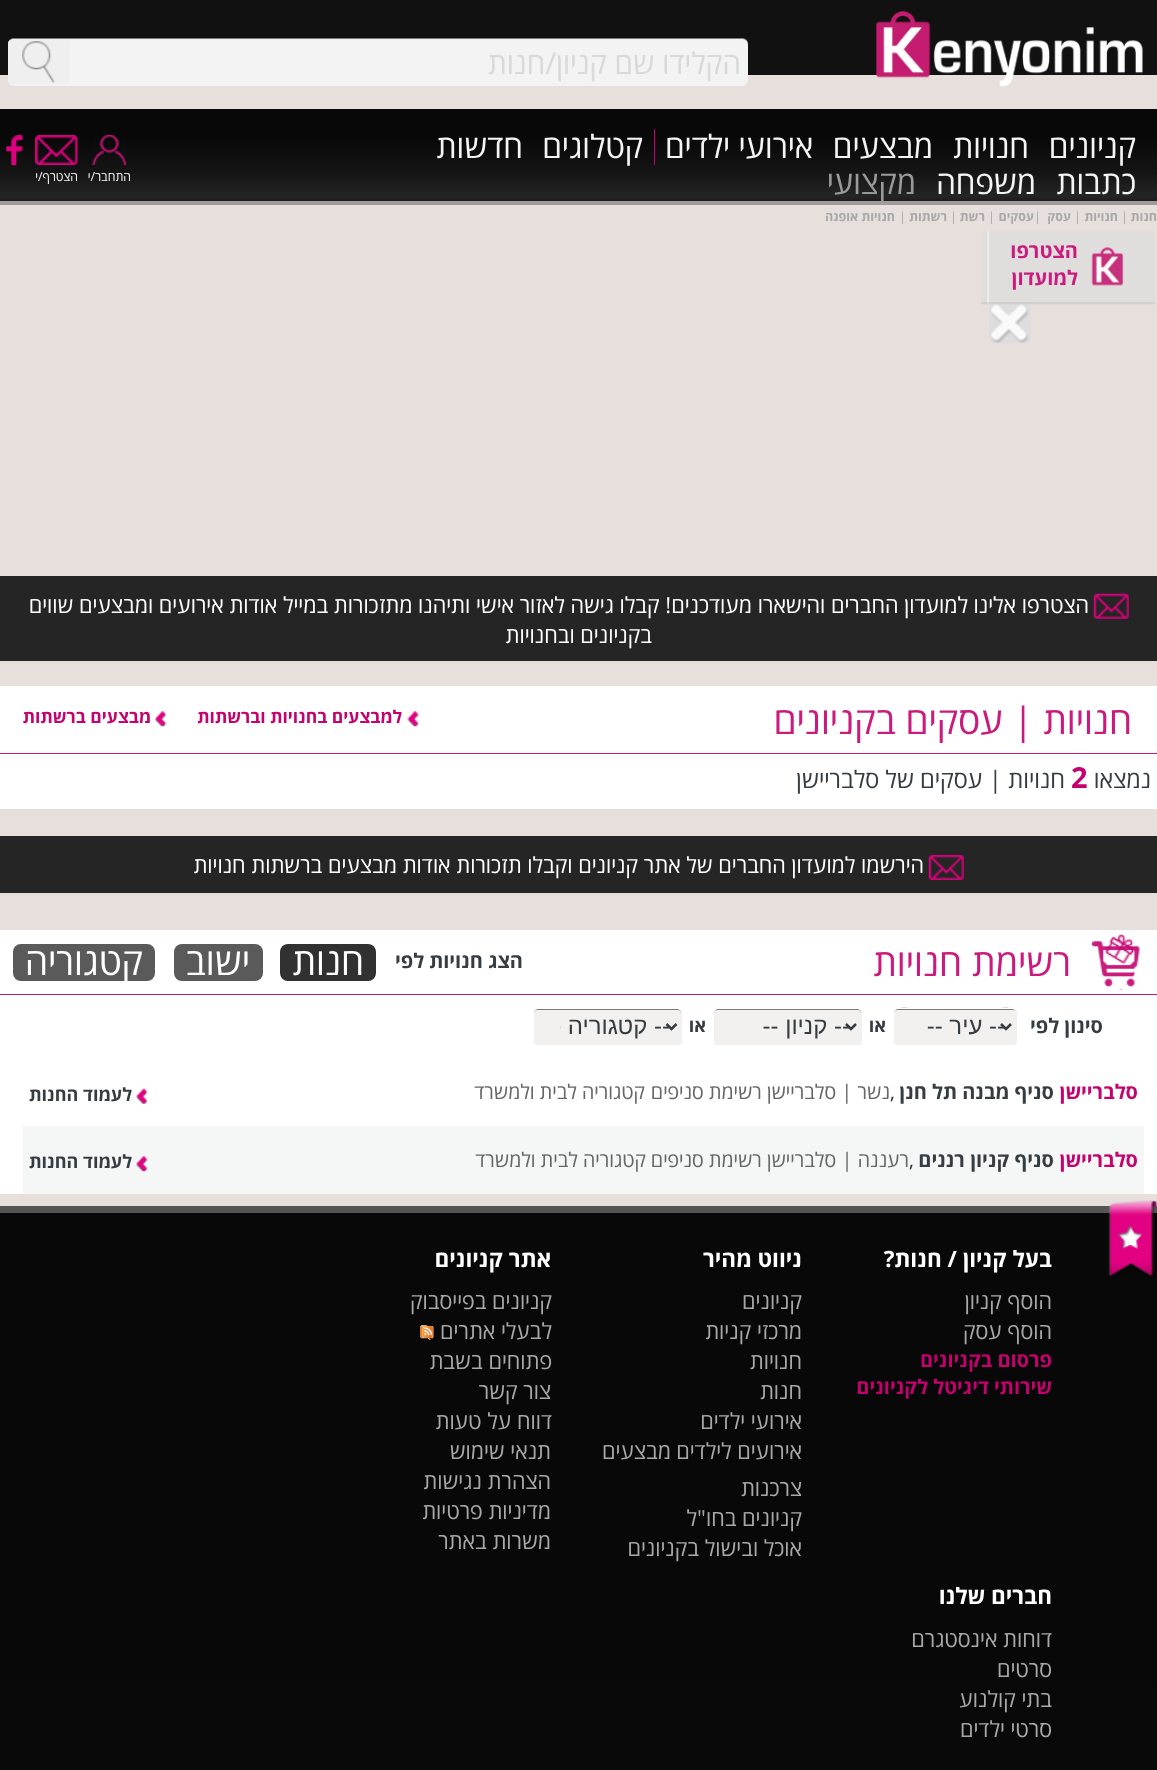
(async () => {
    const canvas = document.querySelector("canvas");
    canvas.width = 1157;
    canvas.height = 1770;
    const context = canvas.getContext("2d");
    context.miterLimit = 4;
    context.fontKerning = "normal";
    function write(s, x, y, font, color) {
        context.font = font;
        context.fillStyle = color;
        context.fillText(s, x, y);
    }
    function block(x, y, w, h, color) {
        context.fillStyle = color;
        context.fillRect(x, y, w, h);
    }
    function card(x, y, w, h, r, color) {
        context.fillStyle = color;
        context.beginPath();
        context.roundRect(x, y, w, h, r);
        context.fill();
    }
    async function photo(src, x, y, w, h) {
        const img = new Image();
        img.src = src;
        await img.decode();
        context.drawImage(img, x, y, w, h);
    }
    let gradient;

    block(0, 0, 1157, 1770, "rgb(230, 223, 219)");
    block(0, 0, 1157, 75, "rgb(17, 17, 17)");
    await photo("media/1.png", 876, 11, 267, 76);
    card(8, 38, 740, 48, 6, "rgb(243, 243, 243)");
    context.fillStyle = "rgba(0, 0, 0, 0.5)";
    context.beginPath();
    context.moveTo(14, 39);
    context.lineTo(742, 39);
    context.bezierCurveTo(745, 39, 748, 41, 748, 45);
    context.lineTo(748, 44);
    context.bezierCurveTo(748, 41, 745, 38, 742, 38);
    context.lineTo(14, 38);
    context.bezierCurveTo(11, 38, 8, 41, 8, 44);
    context.lineTo(8, 45);
    context.bezierCurveTo(8, 41, 10, 39, 14, 39);
    context.closePath();
    context.fill();
    context.direction = "rtl";
    write("הקלידו שם קניון/חנות", 741, 74, "30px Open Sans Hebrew", "rgb(217, 217, 217)");
    card(8, 40, 62, 44, 4, "rgb(239, 239, 239)");
    await photo("media/2.png", 22, 41, 33, 42);
    context.fillStyle = "rgba(0, 0, 0, 0.3)";
    context.filter = "blur(0.5px)";
    context.beginPath();
    context.rect(0, 113, 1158, 92);
    context.fill();
    context.filter = "none";
    gradient = context.createLinearGradient(579, 109, 579, 201);
    gradient.addColorStop(0.3, "rgb(8, 8, 8)");
    gradient.addColorStop(0.7, "rgb(21, 21, 21)");
    gradient.addColorStop(0.95, "rgb(37, 37, 37)");
    gradient.addColorStop(1, "rgb(28, 28, 28)");
    context.fillStyle = gradient;
    context.fillRect(0, 109, 1157, 92);
    write("קניונים", 1136, 158, "32px Open Sans Hebrew", "rgb(245, 245, 245)");
    write("חנויות", 1029, 158, "32px Open Sans Hebrew", "rgb(245, 245, 245)");
    write("מבצעים", 933, 158, "32px Open Sans Hebrew", "rgb(245, 245, 245)");
    block(654, 129, 1, 36, "rgb(196, 1, 110)");
    write("אירועי ילדים", 813, 158, "32px Open Sans Hebrew", "rgb(245, 245, 245)");
    write("קטלוגים", 643, 158, "32px Open Sans Hebrew", "rgb(245, 245, 245)");
    write("חדשות", 523, 158, "32px Open Sans Hebrew", "rgb(245, 245, 245)");
    write("כתבות", 1136, 194, "32px Open Sans Hebrew", "rgb(245, 245, 245)");
    write("משפחה", 1036, 194, "32px Open Sans Hebrew", "rgb(245, 245, 245)");
    write("מקצועי", 916, 194, "32px Open Sans Hebrew", "rgb(154, 154, 154)");
    await photo("media/3.png", 6, 135, 17, 30);
    await photo("media/4.png", 92, 135, 35, 30);
    write("התחבר/י", 131, 181, "12.5px Open Sans Hebrew", "rgb(245, 245, 245)");
    await photo("media/5.png", 35, 135, 43, 30);
    write("הצטרף/י", 78, 181, "12.5px Open Sans Hebrew", "rgb(245, 245, 245)");
    write("חנות", 1157, 221, "bold 12.5px Open Sans Hebrew", "rgb(168, 168, 168)");
    context.direction = "ltr";
    write("|", 1121, 221, "12.5px Open Sans Hebrew", "rgb(168, 168, 168)");
    context.direction = "rtl";
    write("חנויות", 1118, 221, "bold 12.5px Open Sans Hebrew", "rgb(168, 168, 168)");
    context.direction = "ltr";
    write("|", 1074, 221, "12.5px Open Sans Hebrew", "rgb(168, 168, 168)");
    context.direction = "rtl";
    write("עסק", 1071, 221, "bold 12.5px Open Sans Hebrew", "rgb(168, 168, 168)");
    context.direction = "ltr";
    write("|", 1034, 221, "12.5px Open Sans Hebrew", "rgb(168, 168, 168)");
    context.direction = "rtl";
    write("עסקים", 1034, 221, "bold 12.5px Open Sans Hebrew", "rgb(168, 168, 168)");
    context.direction = "ltr";
    write("|", 988, 221, "12.5px Open Sans Hebrew", "rgb(168, 168, 168)");
    context.direction = "rtl";
    write("רשת", 985, 221, "bold 12.5px Open Sans Hebrew", "rgb(168, 168, 168)");
    context.direction = "ltr";
    write("|", 950, 221, "12.5px Open Sans Hebrew", "rgb(168, 168, 168)");
    context.direction = "rtl";
    write("רשתות", 947, 221, "bold 12.5px Open Sans Hebrew", "rgb(168, 168, 168)");
    context.direction = "ltr";
    write("|", 899, 221, "12.5px Open Sans Hebrew", "rgb(168, 168, 168)");
    context.direction = "rtl";
    write("חנויות אופנה", 895, 221, "bold 12.5px Open Sans Hebrew", "rgb(168, 168, 168)");
    card(989, 301, 42, 42, 6, "rgb(222, 221, 221)");
    await photo("media/8.png", 991, 304, 38, 39);
    await photo("media/6.png", 981, 231, 174, 74);
    await photo("media/7.png", 1091, 247, 33, 39);
    write("הצטרפו", 1078, 258, "bold 20px Open Sans Hebrew", "rgb(202, 26, 125)");
    write("למועדון", 1078, 285, "bold 20px Open Sans Hebrew", "rgb(202, 26, 125)");
    block(0, 576, 1157, 85, "rgb(37, 37, 37)");
    await photo("media/9.png", 1093, 593, 36, 26);
    write("הצטרפו אלינו למועדון החברים והישארו מעודכנים! קבלו גישה לאזור אישי ותיהנו מתזכורות במייל אודות אירועים ומבצעים שווים", 1089, 613, "22px Open Sans Hebrew", "rgb(255, 255, 255)");
    write("בקניונים ובחנויות", 652, 643, "22px Open Sans Hebrew", "rgb(255, 255, 255)");
    block(0, 686, 1157, 123, "rgb(255, 255, 255)");
    block(0, 753, 1157, 1, "rgb(202, 26, 125)");
    write("חנויות | עסקים בקניונים", 1132, 734, "37.5px Open Sans Hebrew", "rgb(202, 26, 125)");
    await photo("media/10.png", 407, 711, 12, 16);
    write("למבצעים בחנויות וברשתות", 402, 723, "bold 17.5px Open Sans Hebrew", "rgb(196, 1, 110)");
    await photo("media/11.png", 155, 711, 12, 16);
    write("מבצעים ברשתות", 151, 723, "bold 17.5px Open Sans Hebrew", "rgb(196, 1, 110)");
    write("נמצאו", 1151, 788, "24px Open Sans Hebrew", "rgb(53, 60, 66)");
    context.direction = "ltr";
    write("2", 1071, 788, "bold 29px Open Sans Hebrew", "rgb(196, 1, 110)");
    context.direction = "rtl";
    write("חנויות | עסקים", 1065, 788, "24px Open Sans Hebrew", "rgb(53, 60, 66)");
    write("של סלבריישן", 914, 788, "24px Open Sans Hebrew", "rgb(53, 60, 66)");
    block(0, 836, 1157, 57, "rgb(37, 37, 37)");
    await photo("media/12.png", 928, 855, 36, 25);
    write("הירשמו למועדון החברים של אתר קניונים וקבלו תזכורות אודות מבצעים ברשתות חנויות", 924, 873, "22px Open Sans Hebrew", "rgb(255, 255, 255)");
    block(0, 930, 1157, 264, "rgb(255, 255, 255)");
    block(0, 994, 1157, 1, "rgb(202, 26, 125)");
    await photo("media/13.png", 1091, 934, 49, 56);
    write("רשימת חנויות", 1071, 976, "37.5px Open Sans Hebrew", "rgb(202, 26, 125)");
    write("הצג חנויות לפי", 523, 968, "bold 20px Open Sans Hebrew", "rgb(53, 60, 66)");
    card(280, 944, 96, 37, 8, "rgb(49, 49, 49)");
    write("חנות", 364, 975, "37.5px Open Sans Hebrew", "rgb(255, 255, 255)");
    card(174, 944, 89, 37, 8, "rgb(90, 90, 90)");
    write("ישוב", 250, 975, "37.5px Open Sans Hebrew", "rgb(255, 255, 255)");
    card(13, 944, 142, 37, 8, "rgb(90, 90, 90)");
    write("קטגוריה", 143, 975, "37.5px Open Sans Hebrew", "rgb(255, 255, 255)");
    write("סינון לפי", 1103, 1033, "bold 20px Open Sans Hebrew", "rgb(53, 60, 66)");
    card(893, 1008, 125, 38, 5, "rgb(243, 241, 239)");
    context.fillStyle = "rgb(122, 121, 120)";
    context.beginPath();
    context.moveTo(897, 1010);
    context.lineTo(1013, 1010);
    context.bezierCurveTo(1015, 1010, 1016, 1012, 1016, 1014);
    context.bezierCurveTo(1016, 1004, 996, 1009, 993, 1009);
    context.lineTo(917, 1009);
    context.bezierCurveTo(914, 1009, 894, 1004, 894, 1014);
    context.bezierCurveTo(894, 1012, 895, 1010, 897, 1010);
    context.closePath();
    context.fill();
    context.beginPath();
    context.roundRect(893.5, 1008.5, 124, 37, 4.5);
    context.strokeStyle = "rgb(255, 255, 255)";
    context.stroke();
    context.beginPath();
    context.moveTo(1001, 1024);
    context.lineTo(1006, 1029);
    context.lineTo(1011, 1024);
    context.strokeStyle = "rgb(53, 60, 66)";
    context.lineWidth = 2.5;
    context.stroke();
    write("-- עיר --", 1005, 1034, "24px Liberation Sans", "rgb(53, 60, 66)");
    write("או", 886, 1032, "bold 18px Open Sans Hebrew", "rgb(53, 60, 66)");
    card(713, 1008, 150, 38, 5, "rgb(243, 241, 239)");
    context.fillStyle = "rgb(122, 121, 120)";
    context.beginPath();
    context.moveTo(717, 1010);
    context.lineTo(858, 1010);
    context.bezierCurveTo(860, 1010, 861, 1012, 861, 1014);
    context.lineTo(861, 1013);
    context.bezierCurveTo(861, 1011, 859, 1009, 857, 1009);
    context.lineTo(718, 1009);
    context.bezierCurveTo(716, 1009, 714, 1011, 714, 1013);
    context.lineTo(714, 1014);
    context.bezierCurveTo(714, 1012, 715, 1010, 717, 1010);
    context.closePath();
    context.fill();
    context.beginPath();
    context.roundRect(713.5, 1008.5, 149, 37, 4.5);
    context.strokeStyle = "rgb(255, 255, 255)";
    context.lineWidth = 1;
    context.stroke();
    context.beginPath();
    context.moveTo(846, 1024);
    context.lineTo(851, 1029);
    context.lineTo(856, 1024);
    context.strokeStyle = "rgb(53, 60, 66)";
    context.lineWidth = 2.5;
    context.stroke();
    write("-- קניון --", 850, 1034, "24px Liberation Sans", "rgb(53, 60, 66)");
    write("או", 706, 1032, "bold 18px Open Sans Hebrew", "rgb(53, 60, 66)");
    card(533, 1008, 150, 38, 5, "rgb(243, 241, 239)");
    context.fillStyle = "rgb(122, 121, 120)";
    context.beginPath();
    context.moveTo(537, 1010);
    context.lineTo(678, 1010);
    context.bezierCurveTo(680, 1010, 681, 1012, 681, 1014);
    context.lineTo(681, 1013);
    context.bezierCurveTo(681, 1011, 679, 1009, 677, 1009);
    context.lineTo(538, 1009);
    context.bezierCurveTo(536, 1009, 534, 1011, 534, 1013);
    context.lineTo(534, 1014);
    context.bezierCurveTo(534, 1012, 535, 1010, 537, 1010);
    context.closePath();
    context.fill();
    context.beginPath();
    context.roundRect(533.5, 1008.5, 149, 37, 4.5);
    context.strokeStyle = "rgb(255, 255, 255)";
    context.lineWidth = 1;
    context.stroke();
    context.beginPath();
    context.moveTo(666.5, 1024);
    context.lineTo(671.5, 1029);
    context.lineTo(676.5, 1024);
    context.strokeStyle = "rgb(53, 60, 66)";
    context.lineWidth = 2.5;
    context.stroke();
    context.save();
    context.beginPath();
    context.rect(560, 1013, 110, 28);
    context.clip();
    write("-- קטגוריה --", 670, 1034, "24px Liberation Sans", "rgb(53, 60, 66)");
    context.restore();
    write("סלבריישן", 1138, 1099, "bold 20px Open Sans Hebrew", "rgb(196, 1, 110)");
    write("סניף מבנה תל חנן", 1054, 1099, "bold 20px Open Sans Hebrew", "rgb(53, 60, 66)");
    context.direction = "ltr";
    write(",", 890, 1099, "20px Open Sans Hebrew", "rgb(53, 60, 66)");
    context.direction = "rtl";
    write("נשר |", 890, 1099, "20px Open Sans Hebrew", "rgb(102, 102, 102)");
    write("סלבריישן רשימת סניפים", 836, 1099, "20px Open Sans Hebrew", "rgb(102, 102, 102)");
    write("קטגוריה לבית ולמשרד", 645, 1099, "20px Open Sans Hebrew", "rgb(102, 102, 102)");
    await photo("media/14.png", 136, 1088, 12, 16);
    write("לעמוד החנות", 132, 1101, "bold 18px Open Sans Hebrew", "rgb(53, 60, 66)");
    block(23, 1126, 1121, 68, "rgb(245, 246, 246)");
    write("סלבריישן", 1138, 1167, "bold 20px Open Sans Hebrew", "rgb(196, 1, 110)");
    write("סניף קניון רננים", 1054, 1167, "bold 20px Open Sans Hebrew", "rgb(53, 60, 66)");
    context.direction = "ltr";
    write(",", 909, 1167, "20px Open Sans Hebrew", "rgb(53, 60, 66)");
    context.direction = "rtl";
    write("רעננה |", 909, 1167, "20px Open Sans Hebrew", "rgb(102, 102, 102)");
    write("סלבריישן רשימת סניפים", 836, 1167, "20px Open Sans Hebrew", "rgb(102, 102, 102)");
    write("קטגוריה לבית ולמשרד", 646, 1167, "20px Open Sans Hebrew", "rgb(102, 102, 102)");
    await photo("media/15.png", 136, 1156, 12, 16);
    write("לעמוד החנות", 132, 1168, "bold 18px Open Sans Hebrew", "rgb(53, 60, 66)");
    gradient = context.createLinearGradient(579, 1213, 579, 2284);
    gradient.addColorStop(0.4, "rgb(8, 8, 8)");
    gradient.addColorStop(0.62, "rgb(10, 10, 10)");
    gradient.addColorStop(0.78, "rgb(21, 21, 21)");
    gradient.addColorStop(0.85, "rgb(26, 26, 26)");
    gradient.addColorStop(0.99, "rgb(33, 33, 33)");
    gradient.addColorStop(1, "rgb(28, 28, 28)");
    context.fillStyle = gradient;
    context.fillRect(0, 1213, 1157, 557);
    block(0, 1206, 1157, 7, "rgb(85, 85, 85)");
    await photo("media/16.png", 1108, 1200, 49, 77);
    write("בעל קניון / חנות?", 1052, 1267, "bold 22.5px Open Sans Hebrew", "rgb(255, 255, 255)");
    write("הוסף קניון", 1052, 1309, "22px Open Sans Hebrew", "rgb(168, 168, 168)");
    write("הוסף עסק", 1052, 1339, "22px Open Sans Hebrew", "rgb(168, 168, 168)");
    write("פרסום בקניונים", 1052, 1367, "bold 20px Open Sans Hebrew", "rgb(196, 1, 110)");
    write("שירותי דיגיטל לקניונים", 1052, 1394, "bold 20px Open Sans Hebrew", "rgb(196, 1, 110)");
    write("ניווט מהיר", 802, 1267, "bold 22.5px Open Sans Hebrew", "rgb(255, 255, 255)");
    write("קניונים", 802, 1309, "22px Open Sans Hebrew", "rgb(168, 168, 168)");
    write("מרכזי קניות", 802, 1339, "22px Open Sans Hebrew", "rgb(168, 168, 168)");
    write("חנויות", 802, 1369, "22px Open Sans Hebrew", "rgb(168, 168, 168)");
    write("חנות", 802, 1399, "22px Open Sans Hebrew", "rgb(168, 168, 168)");
    write("אירועי ילדים", 802, 1429, "22px Open Sans Hebrew", "rgb(168, 168, 168)");
    write("אירועים לילדים", 802, 1459, "22px Open Sans Hebrew", "rgb(168, 168, 168)");
    write("מבצעים", 671, 1459, "22px Open Sans Hebrew", "rgb(168, 168, 168)");
    write("צרכנות", 802, 1496, "22px Open Sans Hebrew", "rgb(168, 168, 168)");
    write("קניונים בחו\"ל", 802, 1526, "22px Open Sans Hebrew", "rgb(168, 168, 168)");
    write("אוכל ובישול בקניונים", 802, 1556, "22px Open Sans Hebrew", "rgb(168, 168, 168)");
    write("אתר קניונים", 551, 1267, "bold 22.5px Open Sans Hebrew", "rgb(255, 255, 255)");
    write("קניונים בפייסבוק", 552, 1309, "22px Open Sans Hebrew", "rgb(168, 168, 168)");
    write("לבעלי אתרים", 552, 1339, "22px Open Sans Hebrew", "rgb(168, 168, 168)");
    await photo("media/17.png", 420, 1325, 14, 15);
    write("פתוחים בשבת", 552, 1369, "22px Open Sans Hebrew", "rgb(168, 168, 168)");
    write("צור קשר", 551, 1399, "22px Open Sans Hebrew", "rgb(168, 168, 168)");
    write("דווח על טעות", 552, 1429, "22px Open Sans Hebrew", "rgb(168, 168, 168)");
    write("תנאי שימוש", 551, 1459, "22px Open Sans Hebrew", "rgb(168, 168, 168)");
    write("הצהרת נגישות", 551, 1489, "22px Open Sans Hebrew", "rgb(168, 168, 168)");
    write("מדיניות פרטיות", 551, 1519, "22px Open Sans Hebrew", "rgb(168, 168, 168)");
    write("משרות באתר", 551, 1549, "22px Open Sans Hebrew", "rgb(168, 168, 168)");
    write("חברים שלנו", 1052, 1604, "bold 22.5px Open Sans Hebrew", "rgb(255, 255, 255)");
    write("דוחות אינסטגרם", 1052, 1647, "22px Open Sans Hebrew", "rgb(168, 168, 168)");
    write("סרטים", 1052, 1677, "22px Open Sans Hebrew", "rgb(168, 168, 168)");
    write("בתי קולנוע", 1052, 1707, "22px Open Sans Hebrew", "rgb(168, 168, 168)");
    write("סרטי ילדים", 1052, 1737, "22px Open Sans Hebrew", "rgb(168, 168, 168)");
})();
